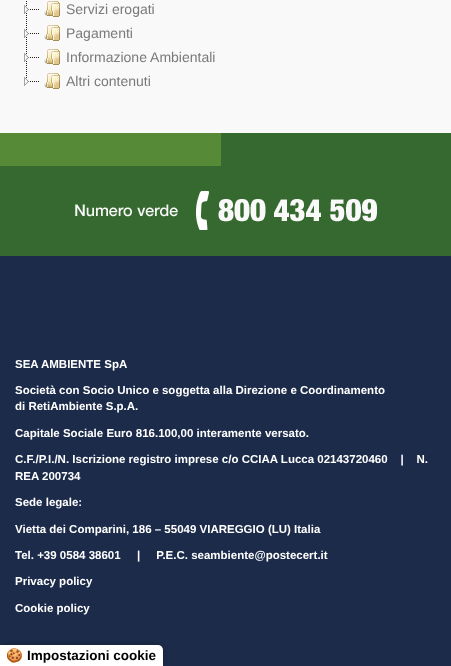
(async () => {
    const canvas = document.querySelector("canvas");
    canvas.width = 451;
    canvas.height = 666;
    const context = canvas.getContext("2d");
    context.miterLimit = 4;
    context.fontKerning = "normal";
    function write(s, x, y, font, color) {
        context.font = font;
        context.fillStyle = color;
        context.fillText(s, x, y);
    }
    function block(x, y, w, h, color) {
        context.fillStyle = color;
        context.fillRect(x, y, w, h);
    }
    async function photo(src, x, y, w, h) {
        const img = new Image();
        img.src = src;
        await img.decode();
        context.drawImage(img, x, y, w, h);
    }

    block(0, 0, 451, 666, "rgb(249, 249, 249)");
    await photo("media/1.png", 26, 1, 1, 19);
    await photo("media/2.png", 24, 5, 15, 9);
    await photo("media/3.png", 44, 1, 16, 16);
    write("Servizi erogati", 66, 14, "14px Liberation Sans", "rgb(122, 122, 122)");
    await photo("media/4.png", 26, 21, 1, 23);
    await photo("media/2.png", 24, 29, 15, 9);
    await photo("media/3.png", 44, 25, 16, 16);
    write("Pagamenti", 66, 38, "14px Liberation Sans", "rgb(122, 122, 122)");
    await photo("media/4.png", 26, 45, 1, 23);
    await photo("media/2.png", 24, 53, 15, 9);
    await photo("media/3.png", 44, 49, 16, 16);
    write("Informazione Ambientali", 66, 62, "14px Liberation Sans", "rgb(122, 122, 122)");
    await photo("media/5.png", 24, 69, 15, 17);
    await photo("media/3.png", 44, 73, 16, 16);
    write("Altri contenuti", 66, 86, "14px Liberation Sans", "rgb(122, 122, 122)");
    block(0, 133, 221, 33, "rgb(87, 138, 54)");
    block(221, 133, 230, 33, "rgb(54, 105, 47)");
    block(0, 166, 451, 90, "rgb(54, 105, 47)");
    await photo("media/6.png", 75, 191, 302, 39);
    block(0, 256, 451, 410, "rgb(28, 43, 74)");
    write("SEA AMBIENTE SpA", 15, 368, "bold 11.5px Liberation Sans", "rgb(255, 255, 255)");
    write("Società con Socio Unico e soggetta alla Direzione e Coordinamento", 15, 394, "bold 11.5px Liberation Sans", "rgb(255, 255, 255)");
    write("di RetiAmbiente S.p.A.", 15, 410, "bold 11.5px Liberation Sans", "rgb(255, 255, 255)");
    write("Capitale Sociale Euro 816.100,00 interamente versato.", 15, 437, "bold 11.5px Liberation Sans", "rgb(255, 255, 255)");
    write("C.F./P.I./N. Iscrizione registro imprese c/o CCIAA Lucca 02143720460    |    N.", 15, 463, "bold 11.5px Liberation Sans", "rgb(255, 255, 255)");
    write("REA 200734", 15, 480, "bold 11.5px Liberation Sans", "rgb(255, 255, 255)");
    write("Sede legale:", 15, 506, "bold 11.5px Liberation Sans", "rgb(255, 255, 255)");
    write("Vietta dei Comparini, 186 – 55049 VIAREGGIO (LU) Italia", 15, 533, "bold 11.5px Liberation Sans", "rgb(255, 255, 255)");
    write("Tel. +39 0584 38601", 15, 559, "bold 11.5px Liberation Sans", "rgb(255, 255, 255)");
    write("|     P.E.C. seambiente@postecert.it", 137, 559, "bold 11.5px Liberation Sans", "rgb(255, 255, 255)");
    write("Privacy policy", 15, 585, "bold 11.5px Liberation Sans", "rgb(255, 255, 255)");
    write("Cookie policy", 15, 612, "bold 11.5px Liberation Sans", "rgb(255, 255, 255)");
    context.fillStyle = "rgba(0, 0, 0, 0.3)";
    context.filter = "blur(2.5px)";
    context.beginPath();
    context.roundRect(0, 645, 163, 21, 5);
    context.fill();
    context.filter = "none";
    context.fillStyle = "rgb(255, 255, 255)";
    context.beginPath();
    context.roundRect(0, 645, 163, 21, [0, 5, 0, 0]);
    context.fill();
    write("🍪", 6, 660, "bold 13.5px Noto Color Emoji", "rgb(0, 0, 0)");
    write("Impostazioni cookie", 27, 660, "bold 13.5px Liberation Sans", "rgb(0, 0, 0)");
})();
